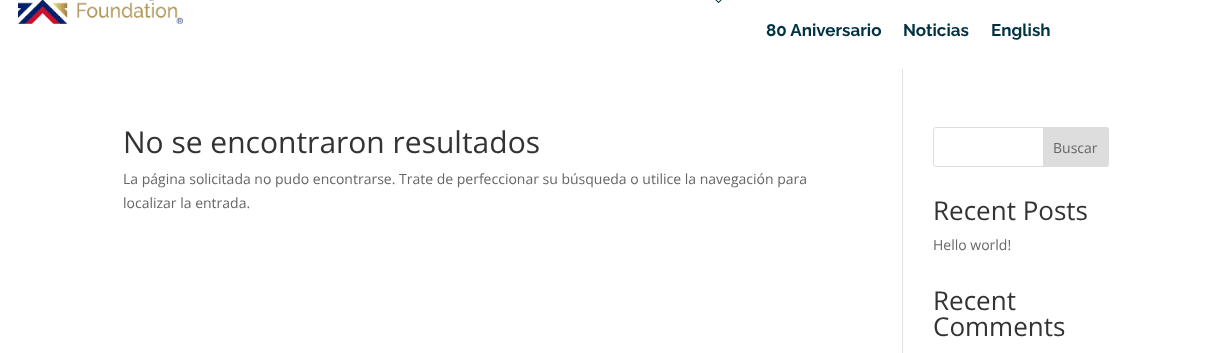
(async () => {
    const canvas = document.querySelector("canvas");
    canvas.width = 1232;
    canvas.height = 353;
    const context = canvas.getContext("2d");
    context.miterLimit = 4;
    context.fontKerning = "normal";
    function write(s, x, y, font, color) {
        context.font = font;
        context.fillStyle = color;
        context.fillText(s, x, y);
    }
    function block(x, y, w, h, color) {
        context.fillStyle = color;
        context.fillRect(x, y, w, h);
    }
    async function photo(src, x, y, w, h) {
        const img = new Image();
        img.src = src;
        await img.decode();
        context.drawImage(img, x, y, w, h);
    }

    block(0, 0, 1232, 353, "rgb(255, 255, 255)");
    await photo("media/1.png", 18, 0, 165, 24);
    await photo("media/2.png", 715, 0, 7, 3);
    write("80 Aniversario", 766, 36, "bold 17px Raleway", "rgb(0, 50, 66)");
    write("Noticias", 903, 36, "bold 17px Raleway", "rgb(0, 50, 66)");
    write("English", 991, 36, "bold 17px Raleway", "rgb(0, 50, 66)");
    block(902, 69, 1, 284, "rgb(226, 226, 226)");
    write("No se encontraron resultados", 123, 153, "30px Open Sans", "rgb(51, 51, 51)");
    write("La página solicitada no pudo encontrarse. Trate de perfeccionar su búsqueda o utilice la navegación para", 123, 184, "14px Open Sans", "rgb(102, 102, 102)");
    write("localizar la entrada.", 123, 208, "14px Open Sans", "rgb(102, 102, 102)");
    context.beginPath();
    context.roundRect(933.5, 127.5, 175, 39, 2.5);
    context.strokeStyle = "rgb(221, 221, 221)";
    context.stroke();
    context.fillStyle = "rgb(221, 221, 221)";
    context.beginPath();
    context.roundRect(1043.5, 127.5, 65, 39, [0, 2.5, 2.5, 0]);
    context.fill();
    context.stroke();
    write("Buscar", 1053, 153, "14px Open Sans", "rgb(102, 102, 102)");
    write("Recent Posts", 933, 220, "26px Open Sans", "rgb(51, 51, 51)");
    write("Hello world!", 933, 250, "14px Open Sans", "rgb(102, 102, 102)");
    write("Recent", 933, 310, "26px Open Sans", "rgb(51, 51, 51)");
    write("Comments", 933, 336, "26px Open Sans", "rgb(51, 51, 51)");
})();
